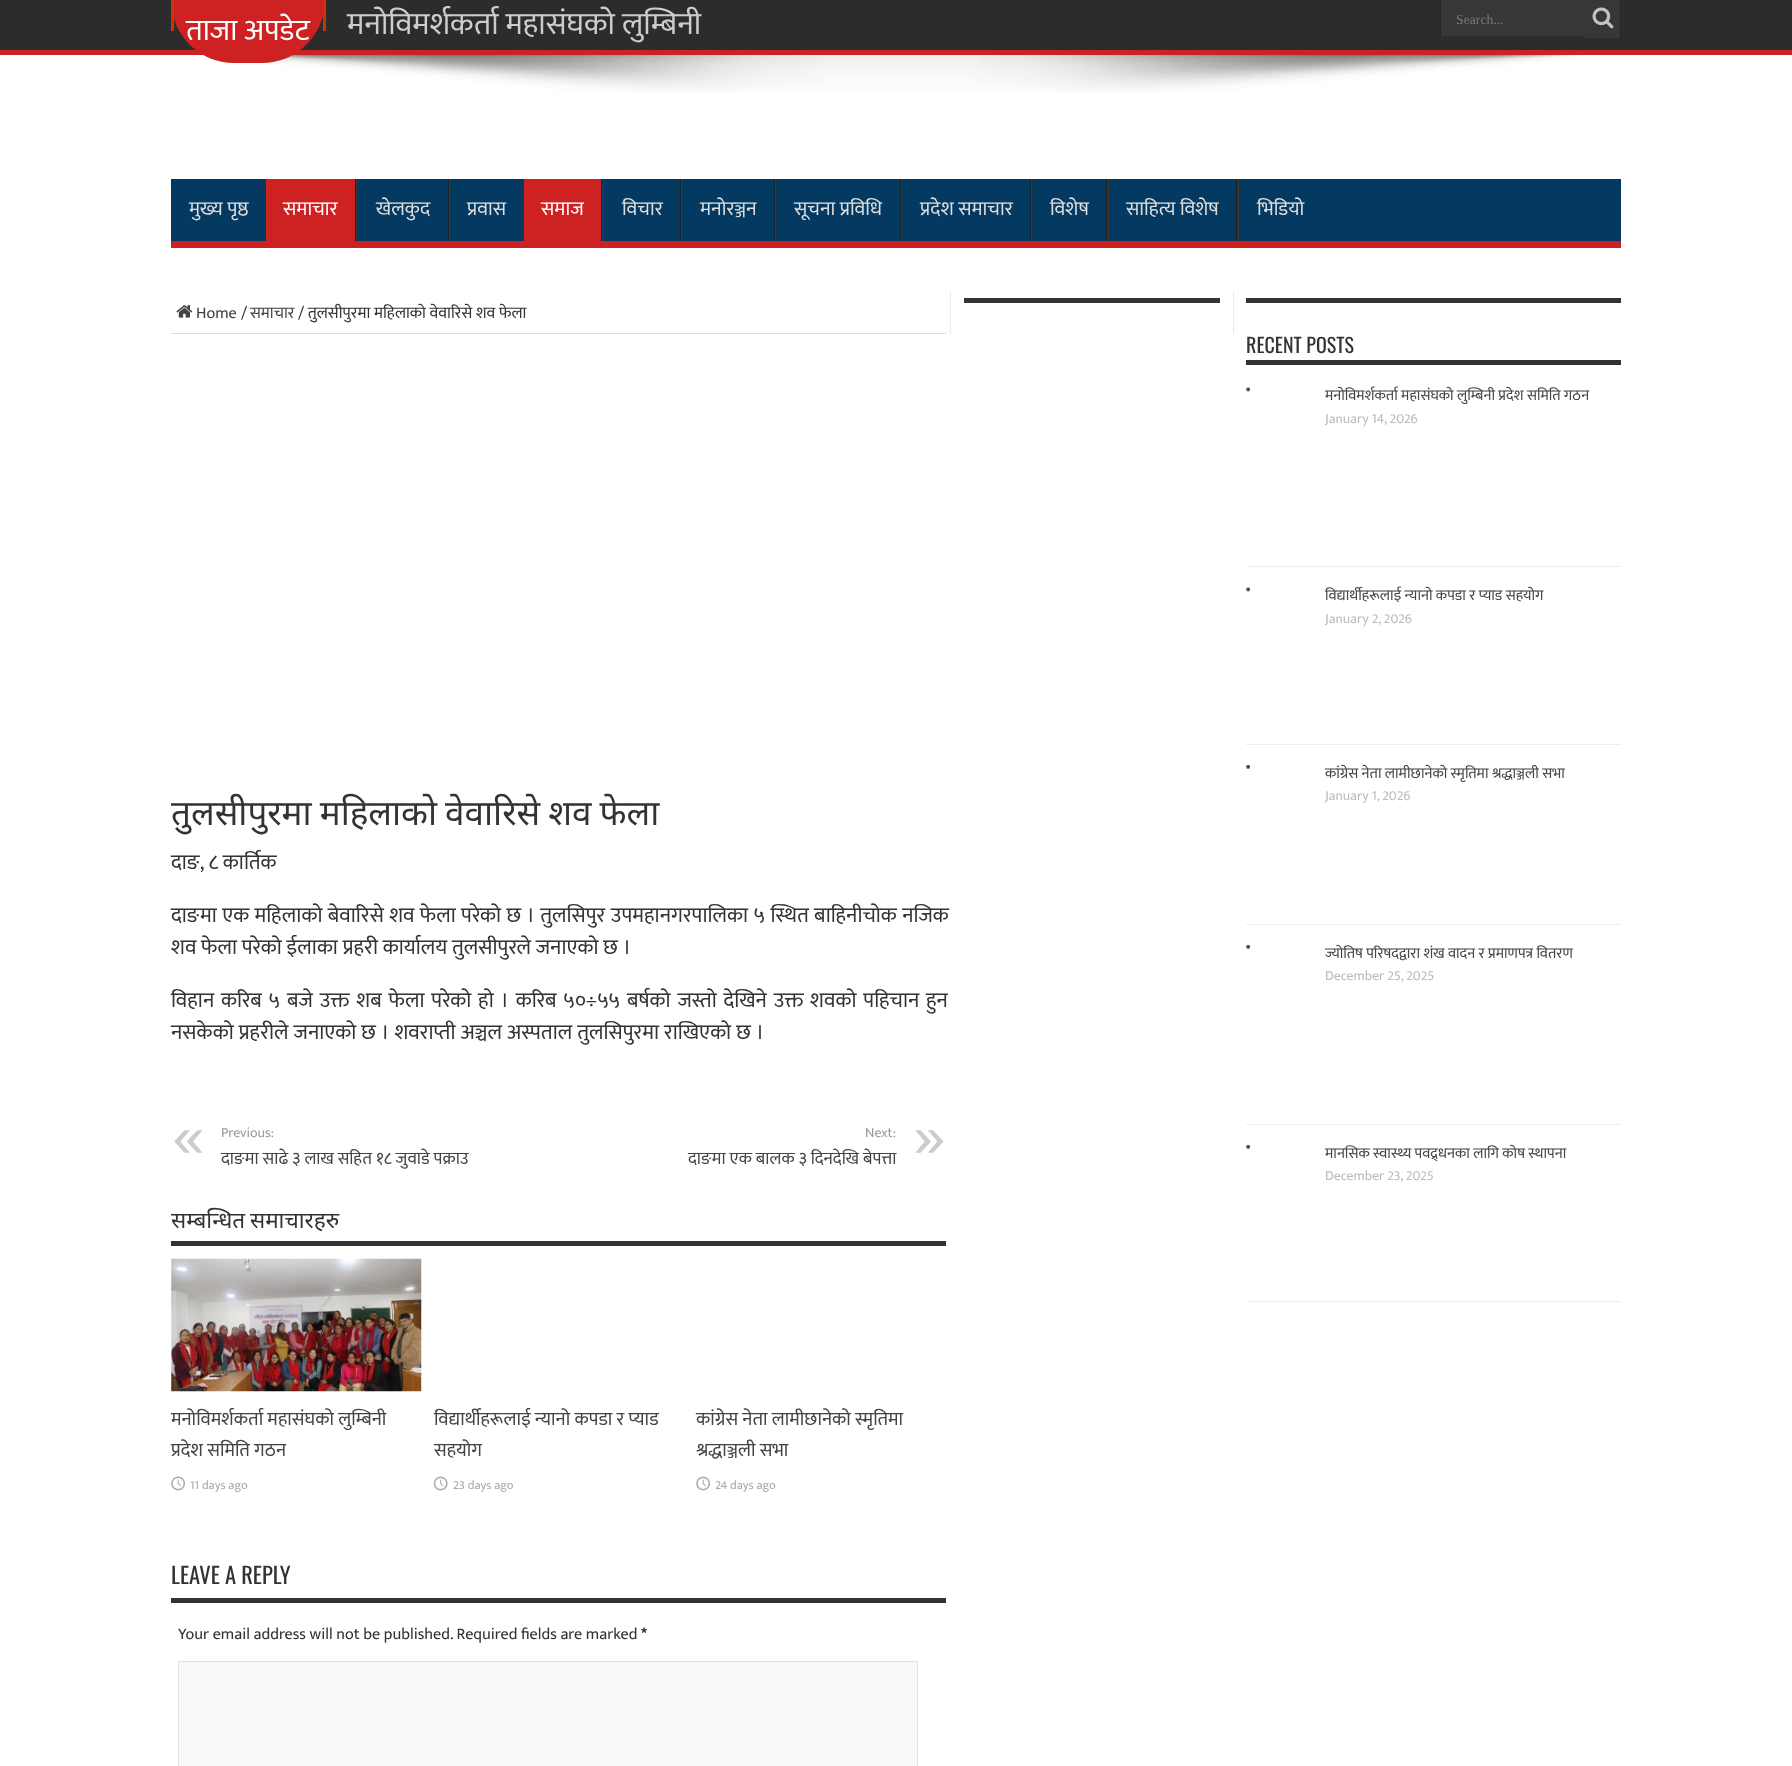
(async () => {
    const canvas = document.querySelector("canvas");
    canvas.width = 1792;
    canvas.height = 1766;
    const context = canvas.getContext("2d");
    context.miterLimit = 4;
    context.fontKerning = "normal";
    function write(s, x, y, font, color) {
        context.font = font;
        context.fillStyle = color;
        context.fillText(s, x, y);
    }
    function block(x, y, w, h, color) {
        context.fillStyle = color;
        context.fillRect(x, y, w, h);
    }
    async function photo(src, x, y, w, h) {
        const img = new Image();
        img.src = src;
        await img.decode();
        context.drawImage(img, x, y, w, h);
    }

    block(0, 0, 1792, 1766, "rgb(255, 255, 255)");
    block(0, 0, 1792, 50, "rgb(44, 44, 44)");
    block(0, 50, 1792, 5, "rgb(205, 33, 34)");
    await photo("media/2.png", 273, 55, 1309, 37);
    context.beginPath();
    context.roundRect(171, 0, 154, 63, [0, 0, 63, 63]);
    context.fill();
    block(323, 0, 3, 31, "rgb(204, 51, 0)");
    block(171, 0, 3, 31, "rgb(204, 51, 0)");
    write("ताजा अपडेट", 186, 40, "30px Mukta", "rgb(255, 255, 255)");
    write("मनोविमर्शकर्ता महासंघको लुम्बिनी", 347, 34, "31.25px Mukta", "rgb(204, 204, 204)");
    block(1441, 0, 143, 36, "rgb(55, 55, 55)");
    block(1440, 0, 1, 36, "rgb(37, 37, 37)");
    write("Search...", 1456, 24, "13.75px Liberation Serif", "rgb(120, 120, 120)");
    block(1584, 0, 36, 38, "rgb(55, 55, 55)");
    block(1620, 0, 1, 38, "rgb(37, 37, 37)");
    await photo("media/1.png", 1592, 7, 22, 22);
    block(171, 179, 1450, 62, "rgb(4, 57, 97)");
    block(171, 241, 1450, 7, "rgb(205, 33, 34)");
    write("मुख्य पृष्ठ", 189, 215, "20px Mukta", "rgb(221, 221, 221)");
    block(266, 179, 89, 62, "rgb(205, 33, 34)");
    write("समाचार", 283, 215, "20px Mukta", "rgb(255, 255, 255)");
    block(355, 179, 1, 62, "rgb(34, 34, 34)");
    block(356, 179, 1, 62, "rgb(56, 56, 56)");
    write("खेलकुद", 376, 215, "20px Mukta", "rgb(221, 221, 221)");
    block(448, 179, 1, 62, "rgb(34, 34, 34)");
    block(449, 179, 1, 62, "rgb(56, 56, 56)");
    write("प्रवास", 467, 215, "20px Mukta", "rgb(221, 221, 221)");
    block(524, 179, 77, 62, "rgb(205, 33, 34)");
    write("समाज", 541, 215, "20px Mukta", "rgb(255, 255, 255)");
    block(601, 179, 1, 62, "rgb(34, 34, 34)");
    block(603, 179, 1, 62, "rgb(56, 56, 56)");
    write("विचार", 622, 215, "20px Mukta", "rgb(221, 221, 221)");
    block(680, 179, 1, 62, "rgb(34, 34, 34)");
    block(681, 179, 1, 62, "rgb(56, 56, 56)");
    write("मनोरञ्जन", 700, 215, "20px Mukta", "rgb(221, 221, 221)");
    block(774, 179, 1, 62, "rgb(34, 34, 34)");
    block(775, 179, 1, 62, "rgb(56, 56, 56)");
    write("सूचना प्रविधि", 794, 215, "20px Mukta", "rgb(221, 221, 221)");
    block(900, 179, 1, 62, "rgb(34, 34, 34)");
    block(901, 179, 1, 62, "rgb(56, 56, 56)");
    write("प्रदेश समाचार", 920, 215, "20px Mukta", "rgb(221, 221, 221)");
    block(1030, 179, 1, 62, "rgb(34, 34, 34)");
    block(1031, 179, 1, 62, "rgb(56, 56, 56)");
    write("विशेष", 1050, 215, "20px Mukta", "rgb(221, 221, 221)");
    block(1106, 179, 1, 62, "rgb(34, 34, 34)");
    block(1108, 179, 1, 62, "rgb(56, 56, 56)");
    write("साहित्य विशेष", 1126, 215, "20px Mukta", "rgb(221, 221, 221)");
    block(1236, 179, 1, 62, "rgb(34, 34, 34)");
    block(1238, 179, 1, 62, "rgb(56, 56, 56)");
    write("भिडियो", 1257, 215, "20px Mukta", "rgb(221, 221, 221)");
    block(171, 333, 775, 1, "rgb(221, 221, 221)");
    await photo("media/3.png", 176, 305, 17, 13);
    write("Home", 196, 318, "16.25px Mukta", "rgb(68, 68, 68)");
    write("/", 241, 318, "16.25px Mukta", "rgb(51, 51, 51)");
    write("समाचार", 250, 318, "16.25px Mukta", "rgb(68, 68, 68)");
    write("/ तुलसीपुरमा महिलाको वेवारिसे शव फेला", 298, 318, "16.25px Mukta", "rgb(51, 51, 51)");
    context.wordSpacing = "-1px";
    write("तुलसीपुरमा महिलाको वेवारिसे शव फेला", 171, 825, "35px Noto Sans", "rgb(51, 51, 51)");
    context.wordSpacing = "0px";
    write("दाङ, ८ कार्तिक", 171, 869, "21.25px Mukta", "rgb(51, 51, 51)");
    context.wordSpacing = "0.6px";
    write("दाङमा एक महिलाको बेवारिसे शव फेला परेको छ । तुलसिपुर उपमहानगरपालिका ५ स्थित बाहिनीचोक नजिक", 171, 922, "21.25px Mukta", "rgb(51, 51, 51)");
    context.wordSpacing = "0px";
    write("शव फेला परेको ईलाका प्रहरी कार्यालय तुलसीपुरले जनाएको छ ।", 171, 954, "21.25px Mukta", "rgb(51, 51, 51)");
    context.wordSpacing = "2.1px";
    write("विहान करिब ५ बजे उक्त शब फेला परेको हो । करिब ५०÷५५ बर्षको जस्तो देखिने उक्त शवको पहिचान हुन", 171, 1007, "21.25px Mukta", "rgb(51, 51, 51)");
    context.wordSpacing = "0.25px";
    write("नसकेको प्रहरीले जनाएको छ । शवराप्ती अञ्चल अस्पताल तुलसिपुरमा राखिएको छ ।", 171, 1039, "21.25px Mukta", "rgb(51, 51, 51)");
    context.wordSpacing = "0px";
    write("«", 171, 1158, "70px Mukta", "rgb(204, 204, 204)");
    write("Previous:", 221, 1137, "14px Mukta", "rgb(153, 153, 153)");
    write("दाङमा साढे ३ लाख सहित १८ जुवाडे पक्राउ", 221, 1164, "17.5px Mukta", "rgb(68, 68, 68)");
    write("Next:", 865, 1137, "14px Mukta", "rgb(153, 153, 153)");
    write("»", 912, 1158, "70px Mukta", "rgb(204, 204, 204)");
    write("दाङमा एक बालक ३ दिनदेखि बेपत्ता", 688, 1164, "17.5px Mukta", "rgb(68, 68, 68)");
    block(171, 1241, 775, 5, "rgb(51, 51, 51)");
    context.wordSpacing = "-1px";
    write("सम्बन्धित समाचारहरु", 171, 1228, "22.5px Noto Sans", "rgb(51, 51, 51)");
    await photo("media/4.png", 171, 1258, 251, 134);
    context.wordSpacing = "0px";
    write("मनोविमर्शकर्ता महासंघको लुम्बिनी", 171, 1425, "19px Mukta", "rgb(68, 68, 68)");
    write("प्रदेश समिति गठन", 171, 1456, "19px Mukta", "rgb(68, 68, 68)");
    await photo("media/5.png", 171, 1476, 14, 15);
    write("11 days ago", 190, 1489, "12.5px Mukta", "rgb(170, 170, 170)");
    write("विद्यार्थीहरूलाई न्यानो कपडा र प्याड", 434, 1425, "19px Mukta", "rgb(68, 68, 68)");
    write("सहयोग", 434, 1456, "19px Mukta", "rgb(68, 68, 68)");
    await photo("media/6.png", 433, 1476, 15, 15);
    write("23 days ago", 453, 1489, "12.5px Mukta", "rgb(170, 170, 170)");
    write("कांग्रेस नेता लामीछानेको स्मृतिमा", 696, 1425, "19px Mukta", "rgb(68, 68, 68)");
    write("श्रद्धाञ्जली सभा", 696, 1456, "19px Mukta", "rgb(68, 68, 68)");
    await photo("media/5.png", 696, 1476, 14, 15);
    write("24 days ago", 715, 1489, "12.5px Mukta", "rgb(170, 170, 170)");
    block(171, 1598, 775, 5, "rgb(51, 51, 51)");
    write("LEAVE A REPLY", 171, 1584, "22.5px Oswald", "rgb(51, 51, 51)");
    write("Your email address will not be published. Required fields are marked", 178, 1639, "16.25px Mukta", "rgb(51, 51, 51)");
    write("*", 641, 1639, "bold 16.25px Mukta", "rgb(51, 51, 51)");
    context.fillStyle = "rgb(249, 249, 249)";
    context.beginPath();
    context.rect(178.5, 1661.5, 739, 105);
    context.fill();
    context.strokeStyle = "rgb(224, 224, 224)";
    context.stroke();
    block(1233, 291, 1, 43, "rgb(234, 234, 234)");
    block(950, 291, 1, 43, "rgb(234, 234, 234)");
    block(964, 298, 256, 5, "rgb(51, 51, 51)");
    block(1246, 298, 375, 5, "rgb(51, 51, 51)");
    block(1246, 360, 375, 5, "rgb(51, 51, 51)");
    write("RECENT POSTS", 1246, 353, "20px Oswald", "rgb(51, 51, 51)");
    await photo("media/7.png", 1246, 387, 4, 5);
    block(1246, 566, 375, 1, "rgb(238, 238, 238)");
    write("मनोविमर्शकर्ता महासंघको लुम्बिनी प्रदेश समिति गठन", 1325, 400, "15px Mukta", "rgb(68, 68, 68)");
    write("January 14, 2026", 1325, 423, "13.75px Mukta", "rgb(187, 187, 187)");
    await photo("media/7.png", 1246, 587, 4, 5);
    block(1246, 744, 375, 1, "rgb(238, 238, 238)");
    write("विद्यार्थीहरूलाई न्यानो कपडा र प्याड सहयोग", 1325, 600, "15px Mukta", "rgb(68, 68, 68)");
    write("January 2, 2026", 1325, 623, "13.75px Mukta", "rgb(187, 187, 187)");
    await photo("media/8.png", 1246, 765, 4, 4);
    block(1246, 924, 375, 1, "rgb(238, 238, 238)");
    write("कांग्रेस नेता लामीछानेको स्मृतिमा श्रद्धाञ्जली सभा", 1325, 778, "15px Mukta", "rgb(68, 68, 68)");
    write("January 1, 2026", 1325, 800, "13.75px Mukta", "rgb(187, 187, 187)");
    await photo("media/8.png", 1246, 945, 4, 4);
    block(1246, 1124, 375, 1, "rgb(238, 238, 238)");
    write("ज्याेतिष परिषदद्वारा शंख वादन र प्रमाणपत्र वितरण", 1325, 958, "15px Mukta", "rgb(68, 68, 68)");
    write("December 25, 2025", 1325, 980, "13.75px Mukta", "rgb(187, 187, 187)");
    await photo("media/8.png", 1246, 1145, 4, 4);
    block(1246, 1301, 375, 1, "rgb(238, 238, 238)");
    write("मानसिक स्वास्थ्य पवद्र्धनका लागि कोष स्थापना", 1325, 1158, "15px Mukta", "rgb(68, 68, 68)");
    write("December 23, 2025", 1325, 1180, "13.75px Mukta", "rgb(187, 187, 187)");
})();
